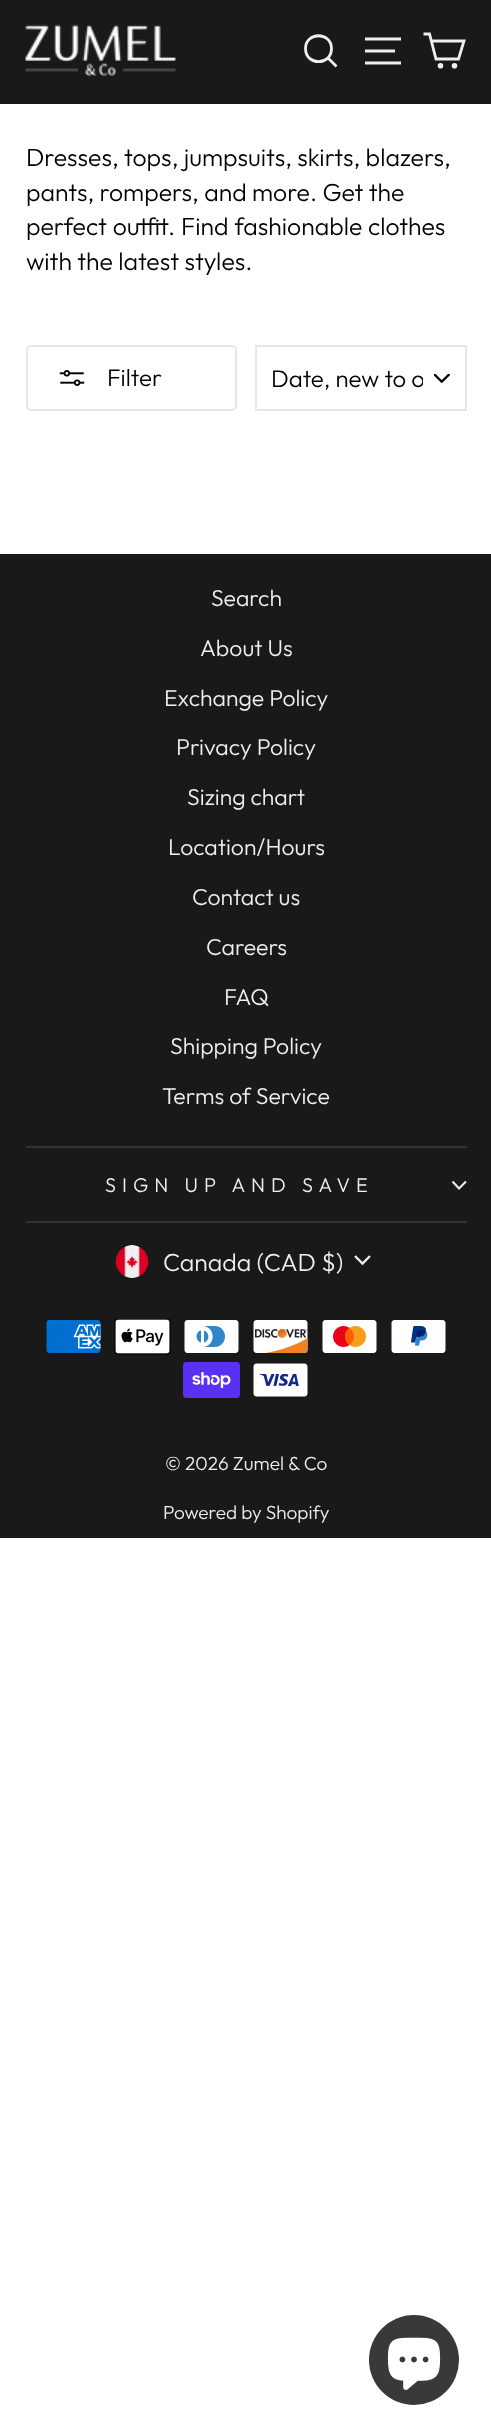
(async () => {
    const canvas = document.querySelector("canvas");
    canvas.width = 491;
    canvas.height = 2435;
    const context = canvas.getContext("2d");
    context.miterLimit = 4;
    context.fontKerning = "normal";
    function write(s, x, y, font, color) {
        context.font = font;
        context.fillStyle = color;
        context.fillText(s, x, y);
    }
    function block(x, y, w, h, color) {
        context.fillStyle = color;
        context.fillRect(x, y, w, h);
    }
    async function photo(src, x, y, w, h) {
        const img = new Image();
        img.src = src;
        await img.decode();
        context.drawImage(img, x, y, w, h);
    }

    block(0, 0, 491, 2435, "rgb(255, 255, 255)");
    block(0, 0, 491, 104, "rgb(25, 25, 25)");
    await photo("media/1.png", 25, 24, 151, 52);
    context.beginPath();
    context.moveTo(331.5, 48.5);
    context.bezierCurveTo(331.5, 66, 305.5, 66, 305.5, 48.5);
    context.bezierCurveTo(305.5, 31.5, 331.5, 31.5, 331.5, 48.5);
    context.closePath();
    context.moveTo(336.5, 66.5);
    context.lineTo(328, 58);
    context.strokeStyle = "rgb(239, 239, 239)";
    context.lineWidth = 2.8;
    context.stroke();
    context.beginPath();
    context.moveTo(365, 39);
    context.lineTo(401, 39);
    context.moveTo(365, 51);
    context.lineTo(395, 51);
    context.moveTo(365, 63);
    context.lineTo(401, 63);
    context.stroke();
    context.beginPath();
    context.moveTo(431.5, 41);
    context.lineTo(464, 41);
    context.lineTo(458.5, 59);
    context.lineTo(436, 59);
    context.lineTo(429.5, 34);
    context.lineTo(423.5, 34);
    context.stroke();
    context.beginPath();
    context.arc(440.5, 65.8, 1.4, 0, Math.PI * 2);
    context.stroke();
    context.beginPath();
    context.arc(454.5, 65.8, 1.4, 0, Math.PI * 2);
    context.stroke();
    write("Dresses, tops, jumpsuits, skirts, blazers,", 26, 166, "300 24.8px Outfit", "rgb(0, 0, 0)");
    write("pants, rompers, and more. Get the", 26, 201, "300 24.8px Outfit", "rgb(0, 0, 0)");
    context.wordSpacing = "0.5px";
    write("perfect outfit. Find fashionable clothes", 26, 235, "300 24.8px Outfit", "rgb(0, 0, 0)");
    context.wordSpacing = "0px";
    write("with the latest styles.", 26, 270, "300 24.8px Outfit", "rgb(0, 0, 0)");
    context.beginPath();
    context.roundRect(27, 346, 209, 64, 4);
    context.strokeStyle = "rgb(232, 232, 225)";
    context.lineWidth = 2;
    context.stroke();
    await photo("media/2.png", 59, 370, 26, 16);
    write("Filter", 107, 386, "300 24px Outfit", "rgb(0, 0, 0)");
    await photo("media/3.png", 434, 374, 16, 9);
    context.strokeRect(256, 346, 210, 64);
    context.save();
    context.beginPath();
    context.rect(272, 362, 151, 33);
    context.clip();
    write("Date, new to o", 271, 387, "300 24px Outfit", "rgb(0, 0, 0)");
    context.restore();
    block(0, 554, 491, 984, "rgb(25, 25, 25)");
    write("Search", 211, 606, "300 23px Outfit", "rgb(239, 239, 239)");
    write("About Us", 200, 656, "300 23px Outfit", "rgb(239, 239, 239)");
    write("Exchange Policy", 164, 706, "300 23px Outfit", "rgb(239, 239, 239)");
    write("Privacy Policy", 176, 755, "300 23px Outfit", "rgb(239, 239, 239)");
    write("Sizing chart", 187, 805, "300 23px Outfit", "rgb(239, 239, 239)");
    write("Location/Hours", 168, 855, "300 23px Outfit", "rgb(239, 239, 239)");
    write("Contact us", 192, 905, "300 23px Outfit", "rgb(239, 239, 239)");
    write("Careers", 206, 955, "300 23px Outfit", "rgb(239, 239, 239)");
    write("FAQ", 224, 1005, "300 23px Outfit", "rgb(239, 239, 239)");
    write("Shipping Policy", 170, 1054, "300 23px Outfit", "rgb(239, 239, 239)");
    write("Terms of Service", 162, 1104, "300 23px Outfit", "rgb(239, 239, 239)");
    block(26, 1146, 441, 2, "rgb(51, 51, 51)");
    context.letterSpacing = "6px";
    write("SIGN UP AND SAVE", 105, 1192, "300 19.9px Outfit", "rgb(239, 239, 239)");
    context.beginPath();
    context.moveTo(452.5, 1181.5);
    context.lineTo(459, 1188.5);
    context.lineTo(466, 1181.5);
    context.strokeStyle = "rgb(239, 239, 239)";
    context.lineWidth = 2.1;
    context.stroke();
    block(26, 1221, 441, 2, "rgb(51, 51, 51)");
    await photo("media/4.png", 115, 1245, 34, 33);
    context.letterSpacing = "0px";
    write("Canada (CAD $)", 163, 1271, "300 24.8px Outfit", "rgb(239, 239, 239)");
    context.beginPath();
    context.moveTo(355, 1256);
    context.lineTo(362.5, 1263.5);
    context.lineTo(370, 1256);
    context.lineWidth = 2.4;
    context.stroke();
    await photo("media/5.png", 46, 1320, 55, 33);
    await photo("media/6.png", 114, 1319, 57, 36);
    await photo("media/7.png", 184, 1320, 55, 33);
    await photo("media/8.png", 253, 1320, 55, 33);
    await photo("media/9.png", 322, 1320, 55, 33);
    await photo("media/10.png", 391, 1320, 55, 33);
    await photo("media/11.png", 183, 1362, 57, 36);
    await photo("media/12.png", 253, 1363, 55, 34);
    write("© 2026 Zumel & Co", 165, 1470, "300 19px Outfit", "rgb(239, 239, 239)");
    write("Powered by Shopify", 163, 1519, "300 19px Outfit", "rgb(239, 239, 239)");
    context.fillStyle = "rgb(57, 57, 57)";
    context.beginPath();
    context.arc(414, 2360, 45, 0, Math.PI * 2);
    context.fill();
    await photo("media/13.png", 387, 2337, 54, 53);
})();
